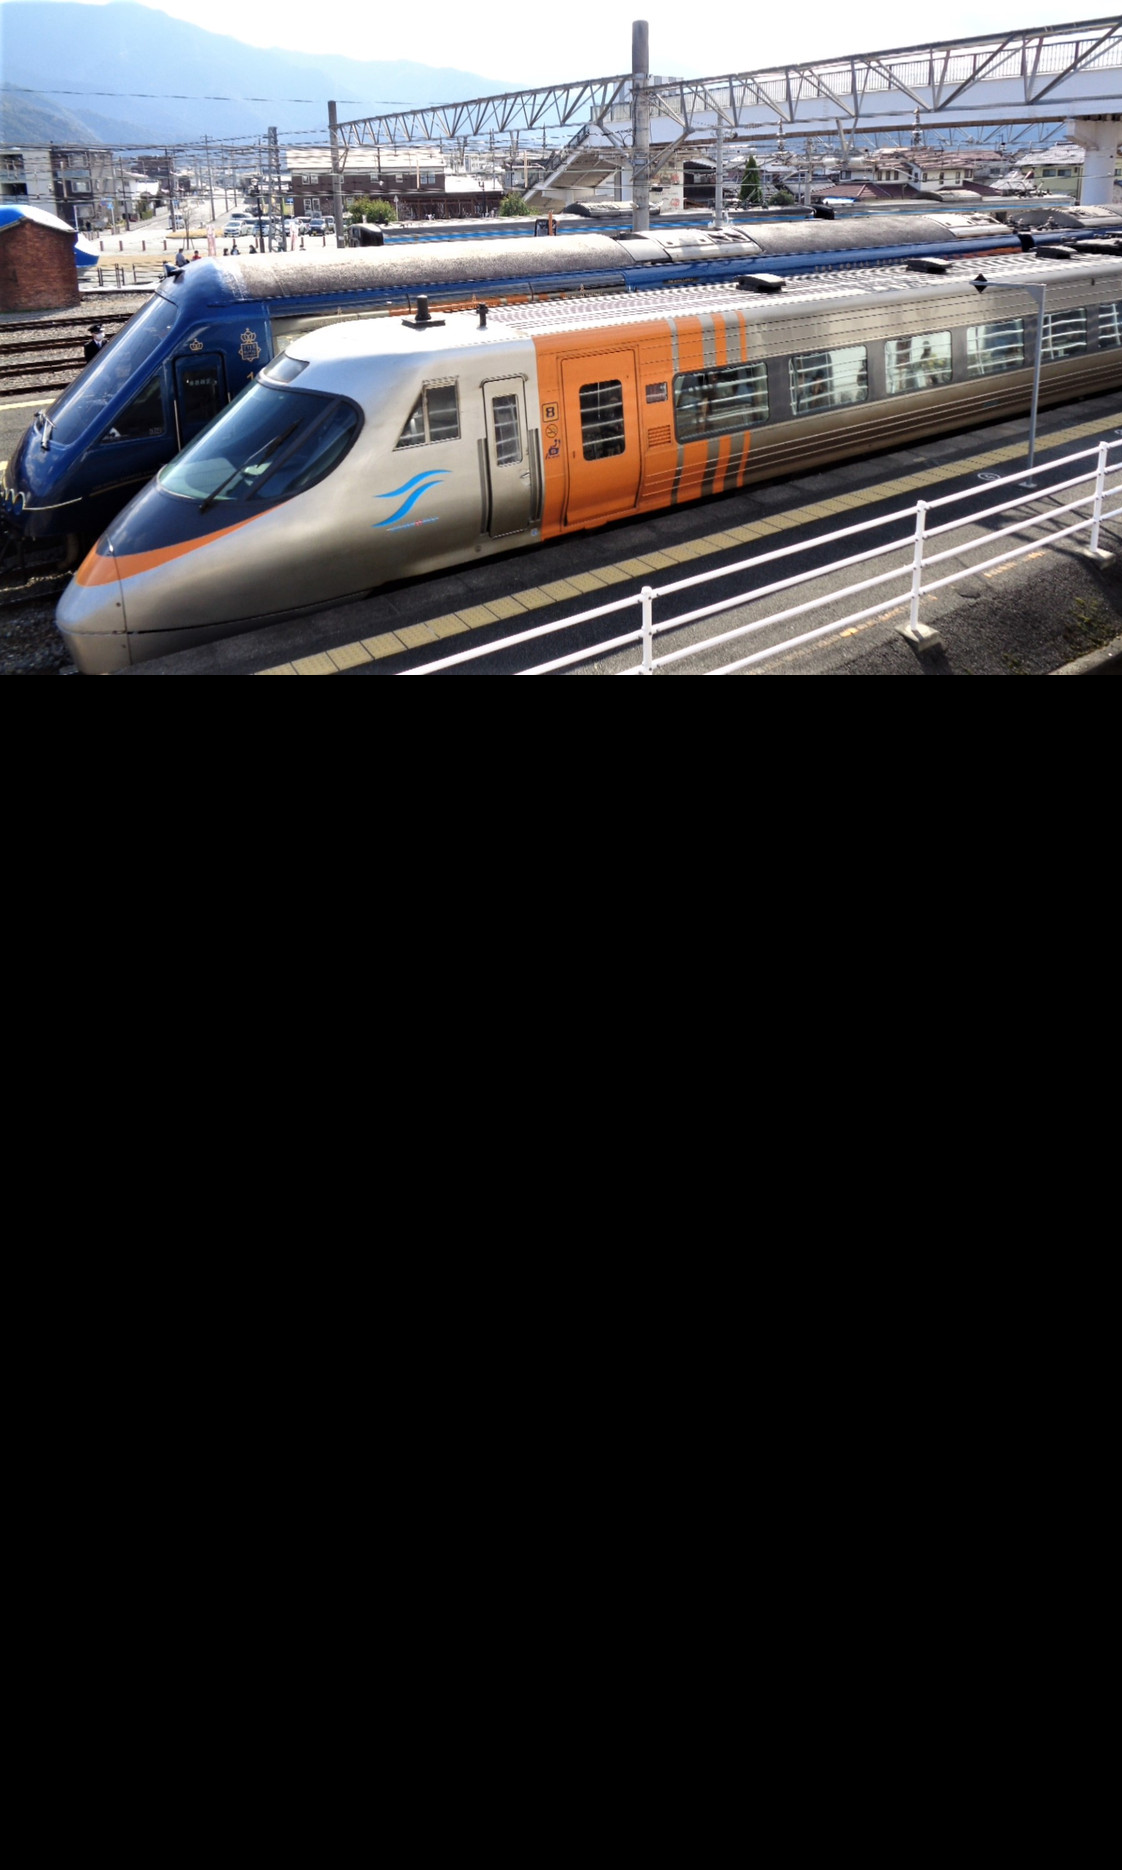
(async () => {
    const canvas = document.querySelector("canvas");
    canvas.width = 1122;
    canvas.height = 1870;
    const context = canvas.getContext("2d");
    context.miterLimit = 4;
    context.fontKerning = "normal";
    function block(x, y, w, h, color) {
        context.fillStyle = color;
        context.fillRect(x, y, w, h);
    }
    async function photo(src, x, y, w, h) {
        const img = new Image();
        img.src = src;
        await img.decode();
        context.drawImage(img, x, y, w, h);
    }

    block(0, 0, 1122, 1870, "rgb(0, 0, 0)");
    await photo("media/1.png", 0, 0, 1122, 675);
})();
